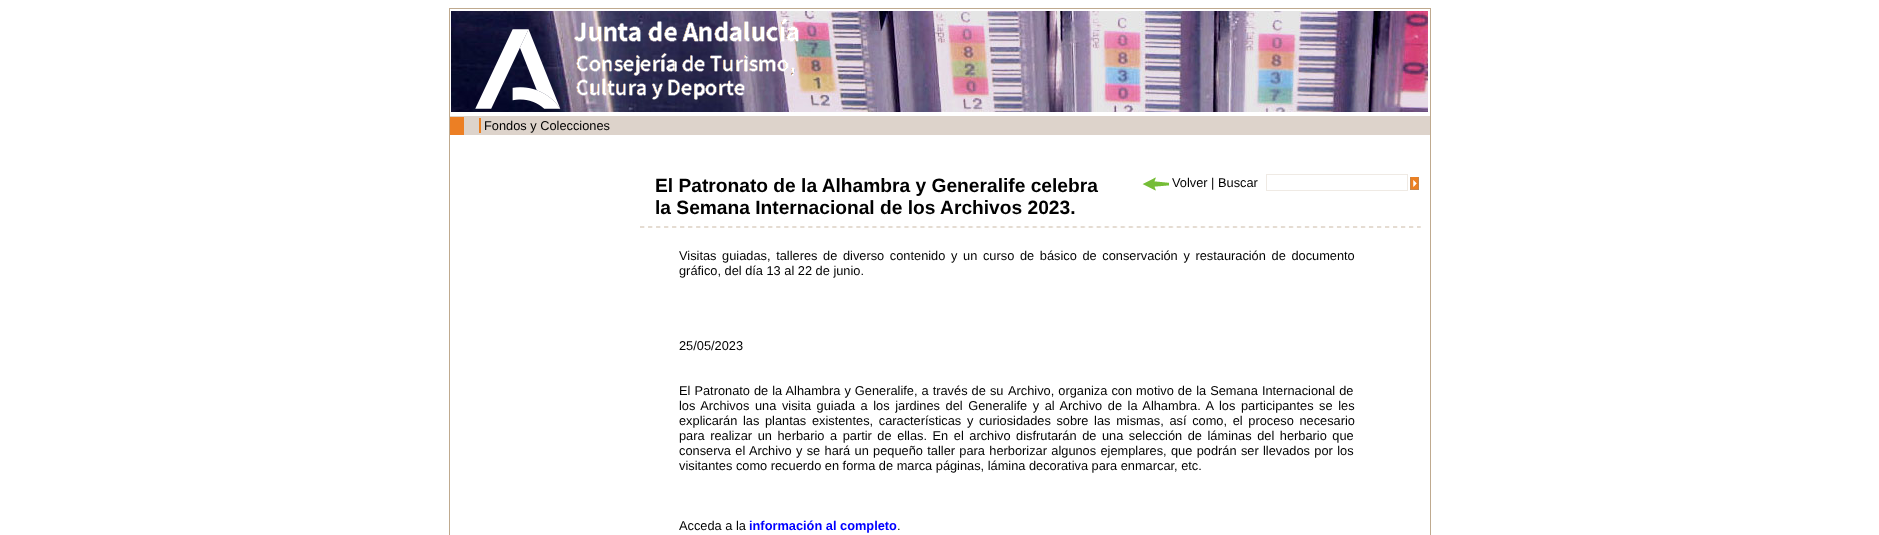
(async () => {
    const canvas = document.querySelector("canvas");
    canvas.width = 1879;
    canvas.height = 535;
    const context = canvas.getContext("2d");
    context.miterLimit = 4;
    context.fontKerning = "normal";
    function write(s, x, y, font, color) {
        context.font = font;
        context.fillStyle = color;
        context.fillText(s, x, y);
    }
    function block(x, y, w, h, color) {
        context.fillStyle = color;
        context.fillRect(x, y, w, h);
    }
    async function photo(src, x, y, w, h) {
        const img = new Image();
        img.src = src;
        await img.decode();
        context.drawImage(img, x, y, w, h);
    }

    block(0, 0, 1879, 535, "rgb(255, 255, 255)");
    context.strokeStyle = "rgb(191, 170, 143)";
    context.strokeRect(449.5, 8.5, 981, 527);
    await photo("media/1.png", 451, 11, 977, 101);
    await photo("media/2.png", 475, 29, 86, 80);
    await photo("media/3.png", 574, 18, 225, 82);
    block(450, 116, 980, 19, "rgb(221, 211, 203)");
    block(450, 117, 14, 18, "rgb(236, 127, 36)");
    block(479, 118, 2, 15, "rgb(235, 128, 35)");
    write("Fondos y Colecciones", 484, 130, "12.8px Liberation Sans", "rgb(0, 0, 0)");
    write("El Patronato de la Alhambra y Generalife celebra", 655, 192, "bold 19.2px Liberation Sans", "rgb(0, 0, 0)");
    write("la Semana Internacional de los Archivos 2023.", 655, 214, "bold 19.2px Liberation Sans", "rgb(0, 0, 0)");
    await photo("media/4.png", 1142, 177, 27, 14);
    write("Volver | Buscar", 1172, 187, "12.8px Liberation Sans", "rgb(0, 0, 0)");
    context.strokeStyle = "rgb(239, 234, 228)";
    context.strokeRect(1266.5, 174.5, 141, 16);
    await photo("media/5.png", 1410, 177, 9, 13);
    await photo("media/6.png", 640, 226, 781, 2);
    context.wordSpacing = "2.1px";
    write("Visitas guiadas, talleres de diverso contenido y un curso de básico de conservación y restauración de documento", 679, 260, "12.8px Liberation Sans", "rgb(0, 0, 0)");
    context.wordSpacing = "0px";
    write("gráfico, del día 13 al 22 de junio.", 679, 275, "12.8px Liberation Sans", "rgb(0, 0, 0)");
    write("25/05/2023", 679, 350, "12.8px Liberation Sans", "rgb(0, 0, 0)");
    context.wordSpacing = "0.5px";
    write("El Patronato de la Alhambra y Generalife, a través de su", 679, 395, "12.8px Liberation Sans", "rgb(0, 0, 0)");
    write("Archivo, organiza con motivo de la Semana Internacional de", 1008, 395, "12.8px Liberation Sans", "rgb(0, 0, 0)");
    context.wordSpacing = "2px";
    write("los Archivos", 679, 410, "12.8px Liberation Sans", "rgb(0, 0, 0)");
    write("una visita guiada a los jardines del Generalife y al Archivo de la Alhambra. A los", 755, 410, "12.8px Liberation Sans", "rgb(0, 0, 0)");
    write("participantes se les", 1241, 410, "12.8px Liberation Sans", "rgb(0, 0, 0)");
    context.wordSpacing = "2.1px";
    write("explicarán las plantas existentes, características y curiosidades sobre las mismas, así como, el proceso necesario", 679, 425, "12.8px Liberation Sans", "rgb(0, 0, 0)");
    context.wordSpacing = "2px";
    write("para realizar un herbario a partir de ellas. En el archivo disfrutarán de una selección de láminas del herbario que", 679, 440, "12.8px Liberation Sans", "rgb(0, 0, 0)");
    context.wordSpacing = "0.8px";
    write("conserva el Archivo y se hará un pequeño taller para herborizar algunos ejemplares, que podrán ser llevados por los", 679, 455, "12.8px Liberation Sans", "rgb(0, 0, 0)");
    context.wordSpacing = "0px";
    write("visitantes como recuerdo en forma de marca páginas, lámina decorativa para enmarcar, etc.", 679, 470, "12.8px Liberation Sans", "rgb(0, 0, 0)");
    write("Acceda a la", 679, 530, "12.8px Liberation Sans", "rgb(0, 0, 0)");
    write("información al completo", 749, 530, "bold 12.8px Liberation Sans", "rgb(0, 0, 255)");
    write(".", 897, 530, "12.8px Liberation Sans", "rgb(0, 0, 0)");
})();
